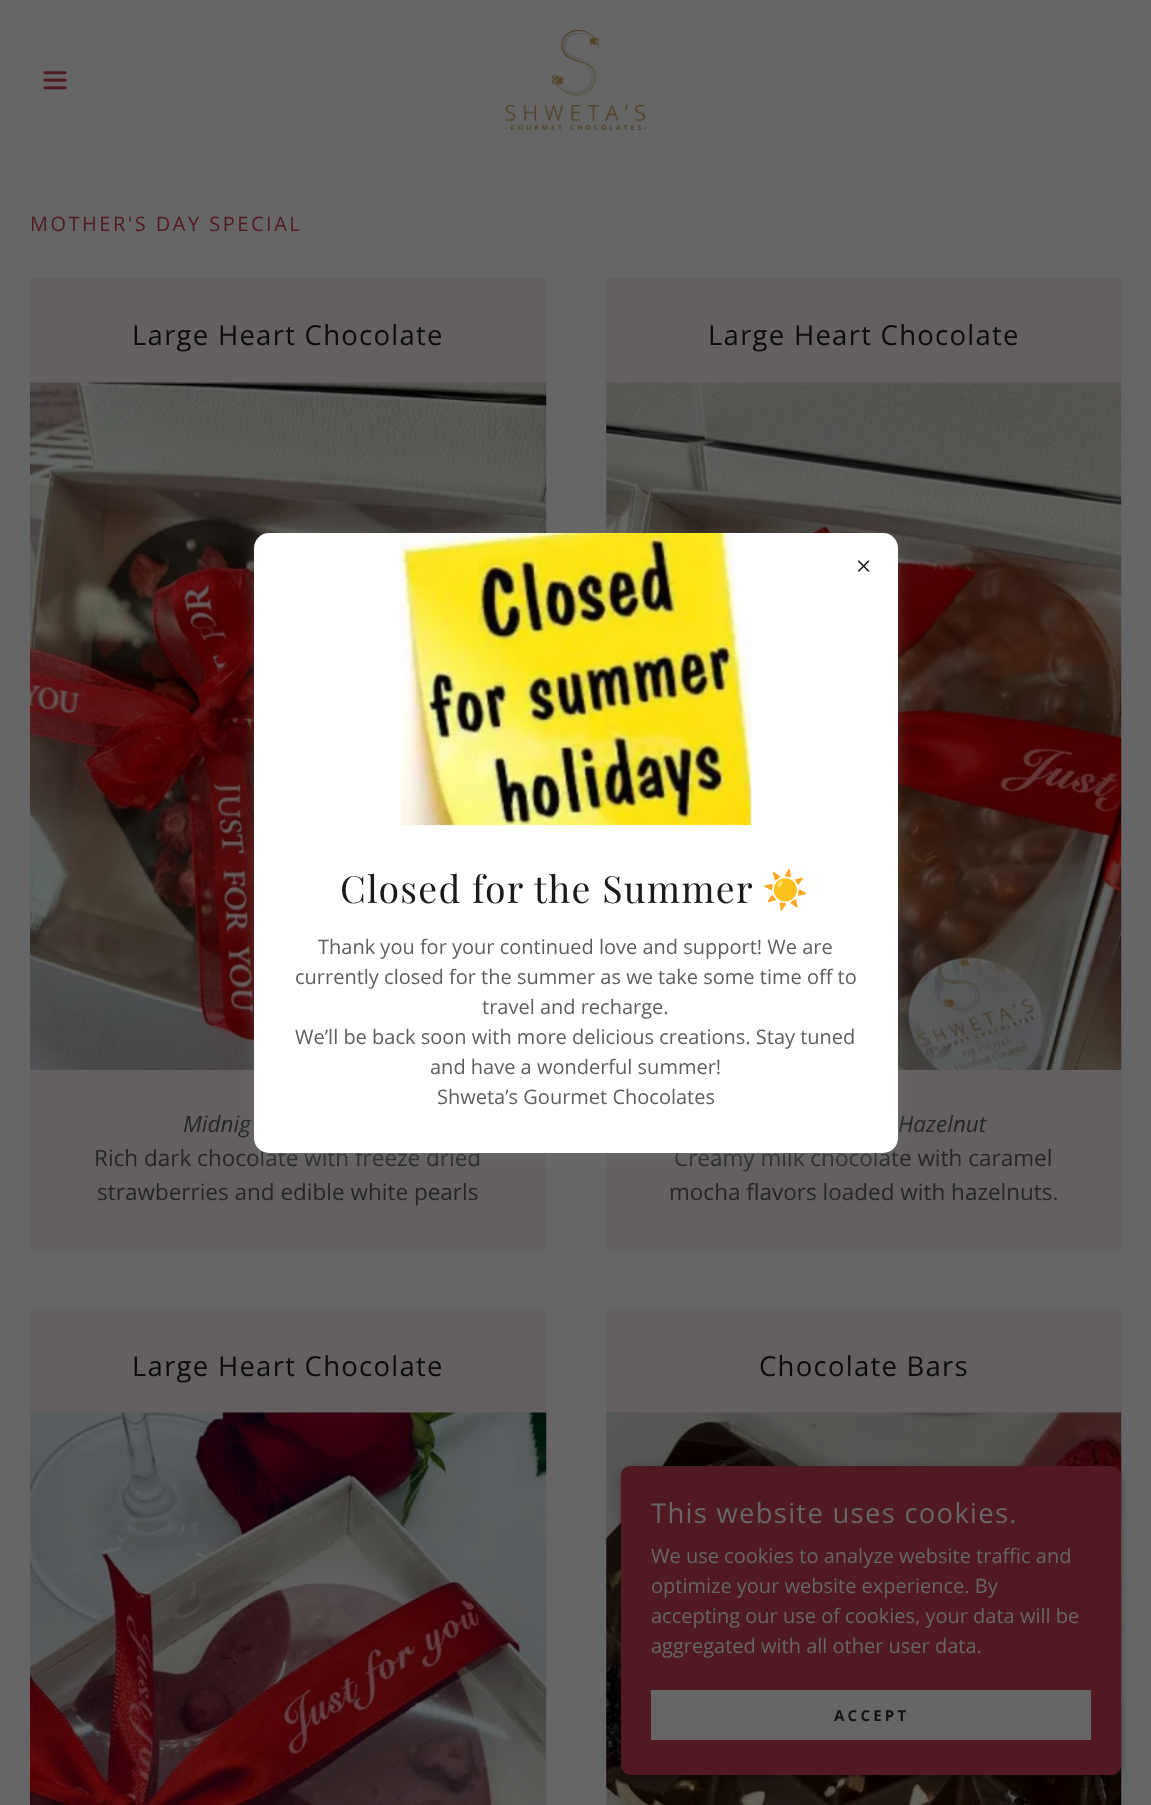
(async () => {
    const canvas = document.querySelector("canvas");
    canvas.width = 1151;
    canvas.height = 1805;
    const context = canvas.getContext("2d");
    context.miterLimit = 4;
    context.fontKerning = "normal";
    function write(s, x, y, font, color) {
        context.font = font;
        context.fillStyle = color;
        context.fillText(s, x, y);
    }
    function block(x, y, w, h, color) {
        context.fillStyle = color;
        context.fillRect(x, y, w, h);
    }
    function card(x, y, w, h, r, color) {
        context.fillStyle = color;
        context.beginPath();
        context.roundRect(x, y, w, h, r);
        context.fill();
    }
    async function photo(src, x, y, w, h) {
        const img = new Image();
        img.src = src;
        await img.decode();
        context.drawImage(img, x, y, w, h);
    }

    block(0, 0, 1151, 1805, "rgb(102, 102, 102)");
    await photo("media/1.png", 43, 71, 24, 19);
    await photo("media/2.png", 505, 30, 142, 100);
    context.letterSpacing = "2.5px";
    write("MOTHER'S DAY SPECIAL", 30, 231, "20px Open Sans", "rgb(81, 26, 34)");
    block(30, 278, 516, 971, "rgb(100, 96, 97)");
    context.letterSpacing = "1.25px";
    write("Large Heart Chocolate", 132, 345, "27.5px Open Sans", "rgb(11, 11, 11)");
    await photo("media/3.png", 30, 382, 517, 688);
    context.letterSpacing = "0px";
    write("Midnig", 183, 1132, "italic 22.5px Open Sans", "rgb(38, 38, 38)");
    write("Rich dark chocolate with freeze dried", 94, 1166, "22.5px Open Sans", "rgb(38, 38, 38)");
    write("strawberries and edible white pearls", 97, 1200, "22.5px Open Sans", "rgb(38, 38, 38)");
    block(606, 278, 515, 971, "rgb(100, 96, 97)");
    context.letterSpacing = "1.25px";
    write("Large Heart Chocolate", 708, 345, "27.5px Open Sans", "rgb(11, 11, 11)");
    await photo("media/4.png", 606, 382, 516, 688);
    context.letterSpacing = "0px";
    write("Hazelnut", 898, 1132, "italic 22.5px Open Sans", "rgb(38, 38, 38)");
    write("Creamy milk chocolate with caramel", 674, 1166, "22.5px Open Sans", "rgb(38, 38, 38)");
    write("mocha flavors loaded with hazelnuts.", 669, 1200, "22.5px Open Sans", "rgb(38, 38, 38)");
    block(30, 1309, 516, 104, "rgb(100, 96, 97)");
    context.letterSpacing = "1.25px";
    write("Large Heart Chocolate", 132, 1376, "27.5px Open Sans", "rgb(11, 11, 11)");
    await photo("media/5.png", 30, 1412, 517, 393);
    block(606, 1309, 515, 496, "rgb(100, 96, 97)");
    write("Chocolate Bars", 759, 1376, "27.5px Open Sans", "rgb(11, 11, 11)");
    await photo("media/6.png", 606, 1412, 516, 393);
    context.fillStyle = "rgba(117, 117, 117, 0.4)";
    context.filter = "blur(7.5px)";
    context.beginPath();
    context.roundRect(254, 538, 644, 620, 15);
    context.fill();
    context.filter = "none";
    card(254, 533, 644, 620, 15, "rgb(255, 255, 255)");
    await photo("media/7.png", 858, 560, 12, 12);
    await photo("media/8.png", 400, 533, 352, 293);
    context.letterSpacing = "1.2px";
    write("Closed for the Summer", 340, 903, "37.5px Playfair Display", "rgb(27, 27, 27)");
    write("☀️", 762, 903, "37.5px Noto Color Emoji", "rgb(27, 27, 27)");
    context.letterSpacing = "0px";
    write("Thank you for your continued love and support! We are", 318, 954, "20px Open Sans", "rgb(94, 94, 94)");
    write("currently closed for the summer as we take some time off to", 295, 984, "20px Open Sans", "rgb(94, 94, 94)");
    write("travel and recharge.", 482, 1014, "20px Open Sans", "rgb(94, 94, 94)");
    write("We’ll be back soon with more delicious creations. Stay tuned", 295, 1044, "20px Open Sans", "rgb(94, 94, 94)");
    write("and have a wonderful summer!", 430, 1074, "20px Open Sans", "rgb(94, 94, 94)");
    write("Shweta’s Gourmet Chocolates", 437, 1104, "20px Open Sans", "rgb(94, 94, 94)");
    context.fillStyle = "rgba(0, 0, 0, 0.3)";
    context.filter = "blur(4px)";
    context.beginPath();
    context.roundRect(621, 1469, 500, 309, 9);
    context.fill();
    context.filter = "none";
    card(621, 1466, 500, 309, 9, "rgb(81, 26, 34)");
    context.letterSpacing = "1.25px";
    write("This website uses cookies.", 651, 1523, "27.5px Open Sans", "rgb(102, 102, 102)");
    context.letterSpacing = "0px";
    write("We use cookies to analyze website traffic and", 651, 1563, "20px Open Sans", "rgb(102, 102, 102)");
    write("optimize your website experience. By", 651, 1593, "20px Open Sans", "rgb(102, 102, 102)");
    write("accepting our use of cookies, your data will be", 651, 1623, "20px Open Sans", "rgb(102, 102, 102)");
    write("aggregated with all other user data.", 651, 1653, "20px Open Sans", "rgb(102, 102, 102)");
    block(651, 1690, 440, 50, "rgb(102, 102, 102)");
    context.letterSpacing = "3.25px";
    write("ACCEPT", 834, 1721, "bold 15px Open Sans", "rgb(19, 19, 19)");
})();
